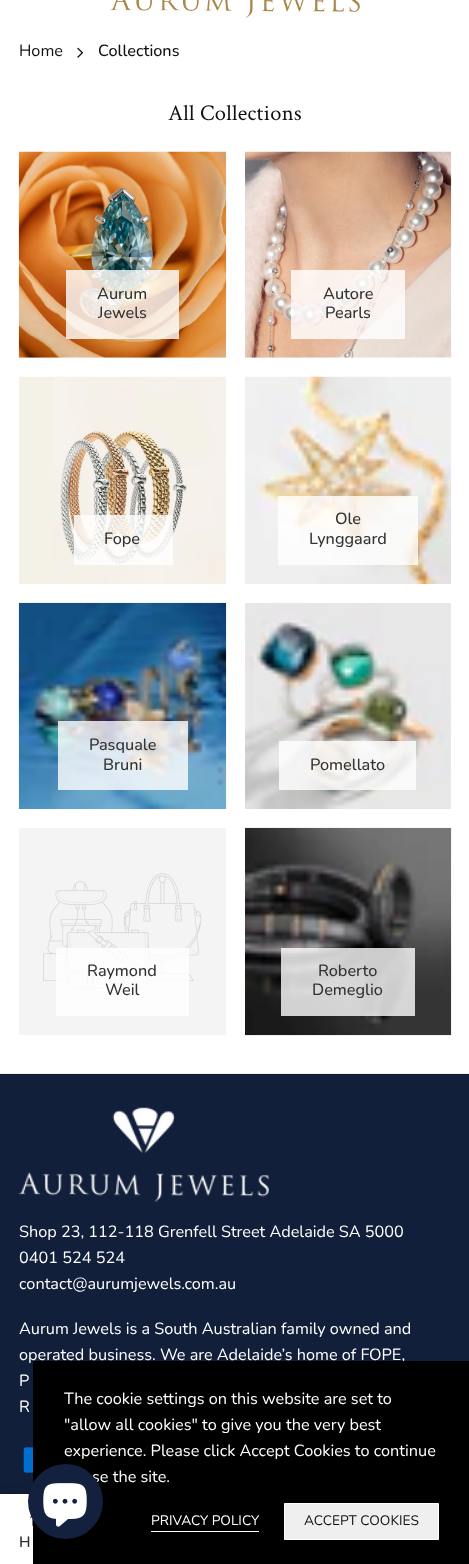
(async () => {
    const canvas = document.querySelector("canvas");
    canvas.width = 469;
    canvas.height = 1564;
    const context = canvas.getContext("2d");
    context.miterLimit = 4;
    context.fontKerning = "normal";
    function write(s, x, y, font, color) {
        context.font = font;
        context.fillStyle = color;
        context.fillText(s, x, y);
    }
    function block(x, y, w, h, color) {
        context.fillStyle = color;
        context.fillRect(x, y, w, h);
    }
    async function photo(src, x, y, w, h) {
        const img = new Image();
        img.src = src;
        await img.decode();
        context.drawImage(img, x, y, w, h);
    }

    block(0, 0, 469, 1564, "rgb(255, 255, 255)");
    await photo("media/1.png", 110, 0, 250, 18);
    write("Home", 19, 56, "16.25px Nunito", "rgb(17, 17, 17)");
    await photo("media/2.png", 77, 47, 6, 11);
    write("Collections", 98, 56, "500 16.25px Nunito", "rgb(17, 17, 17)");
    context.letterSpacing = "0.25px";
    write("All Collections", 168, 120, "22.5px Crimson Text", "rgb(17, 17, 17)");
    await photo("media/3.png", 18, 151, 209, 207);
    block(66, 270, 113, 69, "rgba(255, 255, 255, 0.8)");
    context.letterSpacing = "0px";
    write("Aurum", 97, 299, "500 16.25px Nunito", "rgb(51, 51, 51)");
    write("Jewels", 98, 318, "500 16.25px Nunito", "rgb(51, 51, 51)");
    await photo("media/4.png", 245, 151, 207, 207);
    block(291, 270, 114, 69, "rgba(255, 255, 255, 0.8)");
    write("Autore", 323, 299, "500 16.25px Nunito", "rgb(51, 51, 51)");
    write("Pearls", 325, 318, "500 16.25px Nunito", "rgb(51, 51, 51)");
    await photo("media/5.png", 19, 376, 207, 208);
    block(74, 515, 99, 50, "rgba(255, 255, 255, 0.8)");
    write("Fope", 104, 544, "500 16.25px Nunito", "rgb(51, 51, 51)");
    await photo("media/6.png", 245, 376, 206, 208);
    block(278, 496, 140, 69, "rgba(255, 255, 255, 0.8)");
    write("Ole", 335, 524, "500 16.25px Nunito", "rgb(51, 51, 51)");
    write("Lynggaard", 309, 544, "500 16.25px Nunito", "rgb(51, 51, 51)");
    await photo("media/7.png", 18, 602, 209, 207);
    block(58, 721, 130, 69, "rgba(255, 255, 255, 0.8)");
    write("Pasquale", 89, 750, "500 16.25px Nunito", "rgb(51, 51, 51)");
    write("Bruni", 103, 770, "500 16.25px Nunito", "rgb(51, 51, 51)");
    await photo("media/8.png", 245, 603, 206, 206);
    block(279, 741, 137, 49, "rgba(255, 255, 255, 0.8)");
    write("Pomellato", 310, 770, "500 16.25px Nunito", "rgb(51, 51, 51)");
    block(19, 828, 207, 207, "rgb(244, 244, 244)");
    await photo("media/9.png", 43, 873, 159, 116);
    block(56, 948, 133, 68, "rgba(255, 255, 255, 0.8)");
    write("Raymond", 87, 976, "500 16.25px Nunito", "rgb(51, 51, 51)");
    write("Weil", 105, 995, "500 16.25px Nunito", "rgb(51, 51, 51)");
    await photo("media/10.png", 245, 827, 207, 209);
    block(281, 948, 134, 68, "rgba(255, 255, 255, 0.8)");
    write("Roberto", 318, 976, "500 16.25px Nunito", "rgb(51, 51, 51)");
    write("Demeglio", 312, 995, "500 16.25px Nunito", "rgb(51, 51, 51)");
    block(0, 1074, 469, 420, "rgb(18, 31, 58)");
    block(0, 1073, 469, 1, "rgb(238, 238, 238)");
    await photo("media/11.png", 18, 1107, 251, 95);
    write("Shop 23, 112-118 Grenfell Street Adelaide SA 5000", 19, 1237, "16.25px Nunito", "rgb(255, 255, 255)");
    write("0401 524 524", 19, 1263, "16.25px Nunito", "rgb(255, 255, 255)");
    write("contact@aurumjewels.com.au", 19, 1289, "16.25px Nunito", "rgb(255, 255, 255)");
    write("Aurum Jewels is a South Australian family owned and", 19, 1334, "16.25px Nunito", "rgb(255, 255, 255)");
    write("operated business. We are Adelaide’s home of FOPE,", 19, 1360, "16.25px Nunito", "rgb(255, 255, 255)");
    write("P", 19, 1386, "16.25px Nunito", "rgb(255, 255, 255)");
    write("R", 19, 1412, "16.25px Nunito", "rgb(255, 255, 255)");
    await photo("media/12.png", 23, 1447, 10, 26);
    context.fillStyle = "rgba(0, 0, 0, 0.1)";
    context.filter = "blur(6px)";
    context.beginPath();
    context.rect(0, 1494, 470, 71);
    context.fill();
    context.filter = "none";
    block(33, 1361, 436, 203, "rgb(0, 0, 0)");
    write("The cookie settings on this website are set to", 64, 1404, "16.25px Nunito", "rgb(255, 255, 255)");
    write("\"allow all cookies\" to give you the very best", 64, 1430, "16.25px Nunito", "rgb(255, 255, 255)");
    write("experience. Please click Accept Cookies to continue", 64, 1456, "16.25px Nunito", "rgb(255, 255, 255)");
    write("se the site.", 92, 1482, "16.25px Nunito", "rgb(255, 255, 255)");
    block(151, 1531, 108, 1, "rgb(255, 255, 255)");
    write("PRIVACY POLICY", 151, 1525, "13.75px Nunito", "rgb(255, 255, 255)");
    context.fillStyle = "rgb(239, 239, 239)";
    context.beginPath();
    context.rect(284.5, 1503.5, 154, 36);
    context.fill();
    context.strokeStyle = "rgb(255, 255, 255)";
    context.stroke();
    write("ACCEPT COOKIES", 304, 1525, "13.75px Nunito", "rgb(17, 17, 17)");
    block(0, 1494, 33, 70, "rgb(255, 255, 255)");
    await photo("media/14.png", 30, 1516, 3, 11);
    write("H", 19, 1547, "600 15px Nunito", "rgb(51, 51, 51)");
    context.fillStyle = "rgb(20, 33, 62)";
    context.beginPath();
    context.arc(65.5, 1501.5, 37.5, 0, Math.PI * 2);
    context.fill();
    await photo("media/13.png", 43, 1483, 44, 44);
})();
